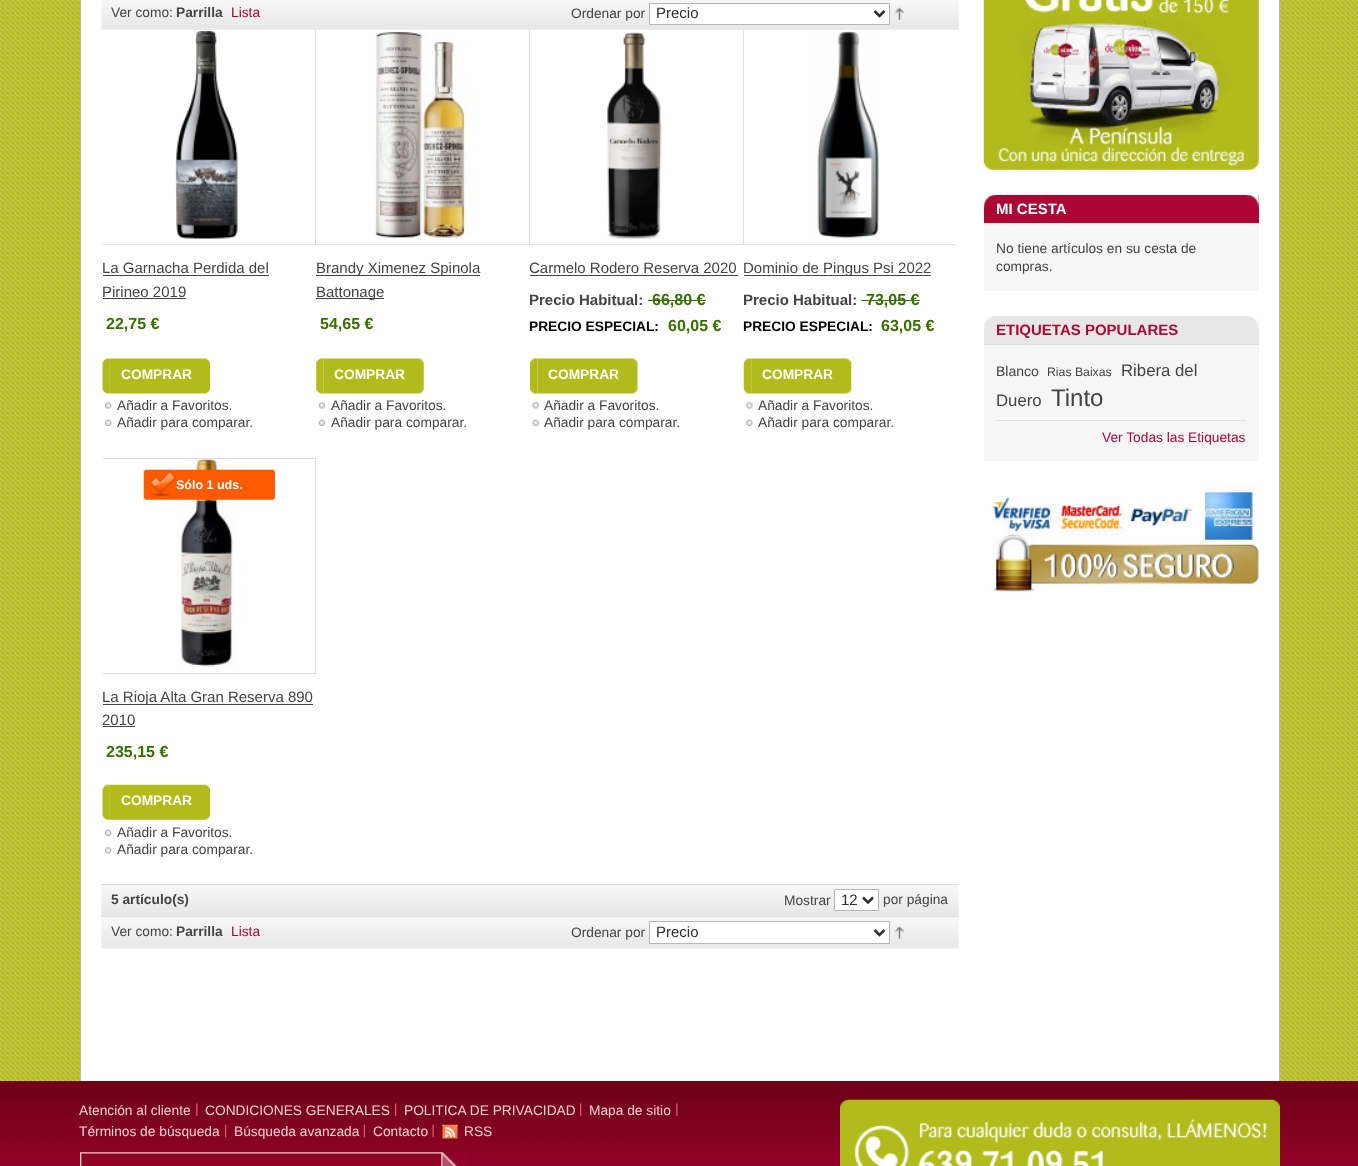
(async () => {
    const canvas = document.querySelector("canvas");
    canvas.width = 1358;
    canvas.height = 1166;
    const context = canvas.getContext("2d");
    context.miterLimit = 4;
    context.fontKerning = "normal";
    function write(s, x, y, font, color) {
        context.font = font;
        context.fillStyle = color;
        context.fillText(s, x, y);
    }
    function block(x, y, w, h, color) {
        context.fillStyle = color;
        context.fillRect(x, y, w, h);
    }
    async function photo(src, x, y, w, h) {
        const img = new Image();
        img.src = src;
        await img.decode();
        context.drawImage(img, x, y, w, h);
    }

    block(0, 0, 1358, 1166, "rgb(255, 255, 255)");
    await photo("media/1.png", 0, 0, 1358, 1081);
    block(81, 0, 1198, 1081, "rgb(255, 255, 255)");
    block(1279, 0, 1, 1081, "rgb(187, 187, 187)");
    block(80, 0, 1, 1081, "rgb(187, 187, 187)");
    await photo("media/2.png", 101, 0, 858, 30);
    write("Ver como:", 111, 17, "13.75px Liberation Sans", "rgb(68, 68, 68)");
    write("Parrilla", 176, 17, "bold 13.75px Liberation Sans", "rgb(68, 68, 68)");
    write("Lista", 231, 17, "13.75px Liberation Sans", "rgb(171, 6, 52)");
    write("Ordenar por", 571, 18, "13.75px Liberation Sans", "rgb(68, 68, 68)");
    context.fillStyle = "rgb(255, 255, 255)";
    context.beginPath();
    context.rect(649.5, 3.5, 240, 21);
    context.fill();
    context.strokeStyle = "rgb(182, 182, 182)";
    context.stroke();
    context.beginPath();
    context.moveTo(874.5, 11);
    context.lineTo(879.5, 16);
    context.lineTo(884.5, 11);
    context.strokeStyle = "rgb(47, 47, 47)";
    context.lineWidth = 2.5;
    context.stroke();
    write("Precio", 656, 18, "15px Liberation Sans", "rgb(47, 47, 47)");
    await photo("media/3.png", 895, 7, 9, 13);
    block(315, 30, 1, 215, "rgb(221, 221, 221)");
    block(103, 244, 213, 1, "rgb(221, 221, 221)");
    await photo("media/4.png", 175, 31, 63, 208);
    write("La Garnacha Perdida del", 102, 273, "15px Liberation Sans", "rgb(68, 68, 68)");
    block(103, 275, 166, 1, "rgb(68, 68, 68)");
    write("Pirineo 2019", 102, 297, "15px Liberation Sans", "rgb(68, 68, 68)");
    block(103, 298, 83, 1, "rgb(68, 68, 68)");
    write("22,75 €", 106, 329, "bold 16px Liberation Sans", "rgb(57, 111, 0)");
    await photo("media/5.png", 102, 358, 9, 36);
    await photo("media/6.png", 110, 358, 100, 36);
    write("COMPRAR", 121, 379, "bold 13.75px Liberation Sans", "rgb(255, 255, 255)");
    await photo("media/7.png", 105, 402, 7, 7);
    write("Añadir a Favoritos.", 117, 410, "13.75px Liberation Sans", "rgb(68, 68, 68)");
    await photo("media/8.png", 105, 419, 7, 7);
    write("Añadir para comparar.", 117, 427, "13.75px Liberation Sans", "rgb(68, 68, 68)");
    block(529, 30, 1, 215, "rgb(221, 221, 221)");
    block(316, 244, 214, 1, "rgb(221, 221, 221)");
    await photo("media/9.png", 374, 31, 102, 208);
    block(316, 275, 164, 1, "rgb(68, 68, 68)");
    write("Brandy Ximenez Spinola", 316, 273, "15px Liberation Sans", "rgb(68, 68, 68)");
    block(316, 298, 68, 1, "rgb(68, 68, 68)");
    write("Battonage", 316, 297, "15px Liberation Sans", "rgb(68, 68, 68)");
    write("54,65 €", 320, 329, "bold 16px Liberation Sans", "rgb(57, 111, 0)");
    await photo("media/10.png", 316, 358, 8, 36);
    await photo("media/11.png", 323, 358, 101, 36);
    write("COMPRAR", 334, 379, "bold 13.75px Liberation Sans", "rgb(255, 255, 255)");
    await photo("media/12.png", 318, 402, 7, 7);
    write("Añadir a Favoritos.", 331, 410, "13.75px Liberation Sans", "rgb(68, 68, 68)");
    await photo("media/13.png", 318, 419, 7, 7);
    write("Añadir para comparar.", 331, 427, "13.75px Liberation Sans", "rgb(68, 68, 68)");
    block(743, 30, 1, 215, "rgb(221, 221, 221)");
    block(530, 244, 426, 1, "rgb(221, 221, 221)");
    await photo("media/14.png", 607, 32, 55, 207);
    write("Carmelo Rodero Reserva 2020", 529, 273, "15px Liberation Sans", "rgb(68, 68, 68)");
    block(530, 275, 208, 1, "rgb(68, 68, 68)");
    write("Precio Habitual:", 529, 305, "bold 15px Liberation Sans", "rgb(68, 68, 68)");
    write("66,80 €", 652, 305, "bold 16px Liberation Sans", "rgb(57, 111, 0)");
    block(648, 300, 58, 1, "rgb(57, 111, 0)");
    write("PRECIO ESPECIAL:", 529, 331, "bold 13.75px Liberation Sans", "rgb(0, 0, 0)");
    write("60,05 €", 668, 331, "bold 16px Liberation Sans", "rgb(57, 111, 0)");
    await photo("media/15.png", 530, 358, 8, 36);
    await photo("media/16.png", 537, 358, 101, 36);
    write("COMPRAR", 548, 379, "bold 13.75px Liberation Sans", "rgb(255, 255, 255)");
    await photo("media/17.png", 532, 402, 7, 7);
    write("Añadir a Favoritos.", 544, 410, "13.75px Liberation Sans", "rgb(68, 68, 68)");
    await photo("media/18.png", 532, 419, 7, 7);
    write("Añadir para comparar.", 544, 427, "13.75px Liberation Sans", "rgb(68, 68, 68)");
    await photo("media/19.png", 743, 31, 136, 208);
    block(744, 275, 187, 1, "rgb(68, 68, 68)");
    write("Dominio de Pingus Psi 2022", 743, 273, "15px Liberation Sans", "rgb(68, 68, 68)");
    write("Precio Habitual:", 743, 305, "bold 15px Liberation Sans", "rgb(68, 68, 68)");
    write("73,05 €", 866, 305, "bold 16px Liberation Sans", "rgb(57, 111, 0)");
    block(861, 300, 59, 1, "rgb(57, 111, 0)");
    write("PRECIO ESPECIAL:", 743, 331, "bold 13.75px Liberation Sans", "rgb(0, 0, 0)");
    write("63,05 €", 881, 331, "bold 16px Liberation Sans", "rgb(57, 111, 0)");
    await photo("media/20.png", 743, 358, 9, 36);
    await photo("media/21.png", 751, 358, 101, 36);
    write("COMPRAR", 762, 379, "bold 13.75px Liberation Sans", "rgb(255, 255, 255)");
    await photo("media/22.png", 746, 402, 7, 7);
    write("Añadir a Favoritos.", 758, 410, "13.75px Liberation Sans", "rgb(68, 68, 68)");
    await photo("media/23.png", 746, 419, 7, 7);
    write("Añadir para comparar.", 758, 427, "13.75px Liberation Sans", "rgb(68, 68, 68)");
    block(103, 458, 213, 1, "rgb(221, 221, 221)");
    block(315, 458, 1, 216, "rgb(221, 221, 221)");
    block(103, 673, 213, 1, "rgb(221, 221, 221)");
    await photo("media/24.png", 177, 459, 65, 208);
    await photo("media/25.png", 143, 469, 132, 31);
    write("Sólo 1 uds.", 176, 489, "bold 12.5px Liberation Sans", "rgb(255, 255, 255)");
    block(103, 704, 210, 1, "rgb(68, 68, 68)");
    write("La Rioja Alta Gran Reserva 890", 102, 702, "15px Liberation Sans", "rgb(68, 68, 68)");
    write("2010", 102, 725, "15px Liberation Sans", "rgb(68, 68, 68)");
    block(103, 726, 32, 1, "rgb(68, 68, 68)");
    write("235,15 €", 106, 757, "bold 16px Liberation Sans", "rgb(57, 111, 0)");
    await photo("media/26.png", 102, 784, 9, 36);
    await photo("media/27.png", 110, 784, 100, 36);
    write("COMPRAR", 121, 805, "bold 13.75px Liberation Sans", "rgb(255, 255, 255)");
    await photo("media/8.png", 105, 829, 7, 7);
    write("Añadir a Favoritos.", 117, 837, "13.75px Liberation Sans", "rgb(68, 68, 68)");
    await photo("media/7.png", 105, 847, 7, 7);
    write("Añadir para comparar.", 117, 854, "13.75px Liberation Sans", "rgb(68, 68, 68)");
    await photo("media/28.png", 101, 883, 858, 33);
    block(101, 884, 858, 1, "rgb(221, 221, 221)");
    write("5 artículo(s)", 111, 904, "bold 13.75px Liberation Sans", "rgb(68, 68, 68)");
    write("Mostrar", 784, 905, "13.75px Liberation Sans", "rgb(68, 68, 68)");
    context.fillStyle = "rgb(255, 255, 255)";
    context.beginPath();
    context.rect(834.5, 889.5, 44, 21);
    context.fill();
    context.strokeStyle = "rgb(182, 182, 182)";
    context.lineWidth = 1;
    context.stroke();
    context.beginPath();
    context.moveTo(863, 897.5);
    context.lineTo(868, 902.5);
    context.lineTo(873, 897.5);
    context.strokeStyle = "rgb(47, 47, 47)";
    context.lineWidth = 2.5;
    context.stroke();
    write("12", 841, 905, "15px Liberation Sans", "rgb(47, 47, 47)");
    write("por página", 883, 904, "13.75px Liberation Sans", "rgb(68, 68, 68)");
    await photo("media/29.png", 101, 917, 858, 32);
    block(101, 916, 858, 1, "rgb(221, 221, 221)");
    write("Ver como:", 111, 936, "13.75px Liberation Sans", "rgb(68, 68, 68)");
    write("Parrilla", 176, 936, "bold 13.75px Liberation Sans", "rgb(68, 68, 68)");
    write("Lista", 231, 936, "13.75px Liberation Sans", "rgb(171, 6, 52)");
    write("Ordenar por", 571, 937, "13.75px Liberation Sans", "rgb(68, 68, 68)");
    context.fillStyle = "rgb(255, 255, 255)";
    context.beginPath();
    context.rect(649.5, 921.5, 240, 22);
    context.fill();
    context.strokeStyle = "rgb(182, 182, 182)";
    context.lineWidth = 1;
    context.stroke();
    context.beginPath();
    context.moveTo(874.5, 930);
    context.lineTo(879.5, 935);
    context.lineTo(884.5, 930);
    context.strokeStyle = "rgb(47, 47, 47)";
    context.lineWidth = 2.5;
    context.stroke();
    write("Precio", 656, 937, "15px Liberation Sans", "rgb(47, 47, 47)");
    await photo("media/30.png", 895, 926, 9, 13);
    await photo("media/31.png", 983, 0, 276, 170);
    block(984, 195, 275, 28, "rgb(171, 6, 52)");
    await photo("media/32.png", 984, 195, 275, 13);
    block(984, 223, 275, 1, "rgb(221, 221, 221)");
    write("MI CESTA", 996, 214, "bold 15px Liberation Sans", "rgb(255, 255, 255)");
    block(984, 224, 275, 67, "rgb(246, 246, 246)");
    write("No tiene artículos en su cesta de", 996, 253, "13.75px Liberation Sans", "rgb(68, 68, 68)");
    write("compras.", 996, 271, "13.75px Liberation Sans", "rgb(68, 68, 68)");
    block(984, 316, 275, 28, "rgb(231, 231, 231)");
    await photo("media/33.png", 984, 316, 275, 12);
    block(984, 344, 275, 1, "rgb(221, 221, 221)");
    write("ETIQUETAS POPULARES", 996, 335, "bold 15px Liberation Sans", "rgb(171, 6, 52)");
    block(984, 345, 275, 116, "rgb(246, 246, 246)");
    write("Blanco", 996, 376, "14px Liberation Sans", "rgb(68, 68, 68)");
    write("Rias Baixas", 1047, 376, "12.25px Liberation Sans", "rgb(68, 68, 68)");
    write("Ribera del", 1121, 376, "16.75px Liberation Sans", "rgb(68, 68, 68)");
    write("Duero", 996, 406, "16.75px Liberation Sans", "rgb(68, 68, 68)");
    write("Tinto", 1051, 406, "24px Liberation Sans", "rgb(68, 68, 68)");
    block(996, 420, 250, 1, "rgb(221, 221, 221)");
    write("Ver Todas las Etiquetas", 1102, 442, "13.75px Liberation Sans", "rgb(171, 6, 52)");
    await photo("media/34.png", 991, 486, 268, 107);
    await photo("media/35.png", 0, 1081, 1358, 85);
    write("Atención al cliente", 79, 1115, "13.75px Liberation Sans", "rgb(239, 210, 206)");
    await photo("media/36.png", 196, 1103, 2, 13);
    write("CONDICIONES GENERALES", 205, 1115, "13.75px Liberation Sans", "rgb(239, 210, 206)");
    await photo("media/37.png", 395, 1103, 2, 13);
    write("POLITICA DE PRIVACIDAD", 404, 1115, "13.75px Liberation Sans", "rgb(239, 210, 206)");
    await photo("media/37.png", 580, 1103, 2, 13);
    write("Mapa de sitio", 589, 1115, "13.75px Liberation Sans", "rgb(239, 210, 206)");
    await photo("media/36.png", 676, 1103, 2, 13);
    write("Términos de búsqueda", 79, 1136, "13.75px Liberation Sans", "rgb(239, 210, 206)");
    await photo("media/38.png", 225, 1124, 2, 14);
    write("Búsqueda avanzada", 234, 1136, "13.75px Liberation Sans", "rgb(239, 210, 206)");
    await photo("media/39.png", 363, 1124, 2, 14);
    write("Contacto", 373, 1136, "13.75px Liberation Sans", "rgb(239, 210, 206)");
    await photo("media/40.png", 432, 1124, 2, 14);
    await photo("media/41.png", 442, 1124, 16, 15);
    write("RSS", 464, 1136, "13.75px Liberation Sans", "rgb(239, 210, 206)");
    await photo("media/42.png", 80, 1152, 388, 14);
    await photo("media/43.png", 840, 1099, 440, 67);
})();
